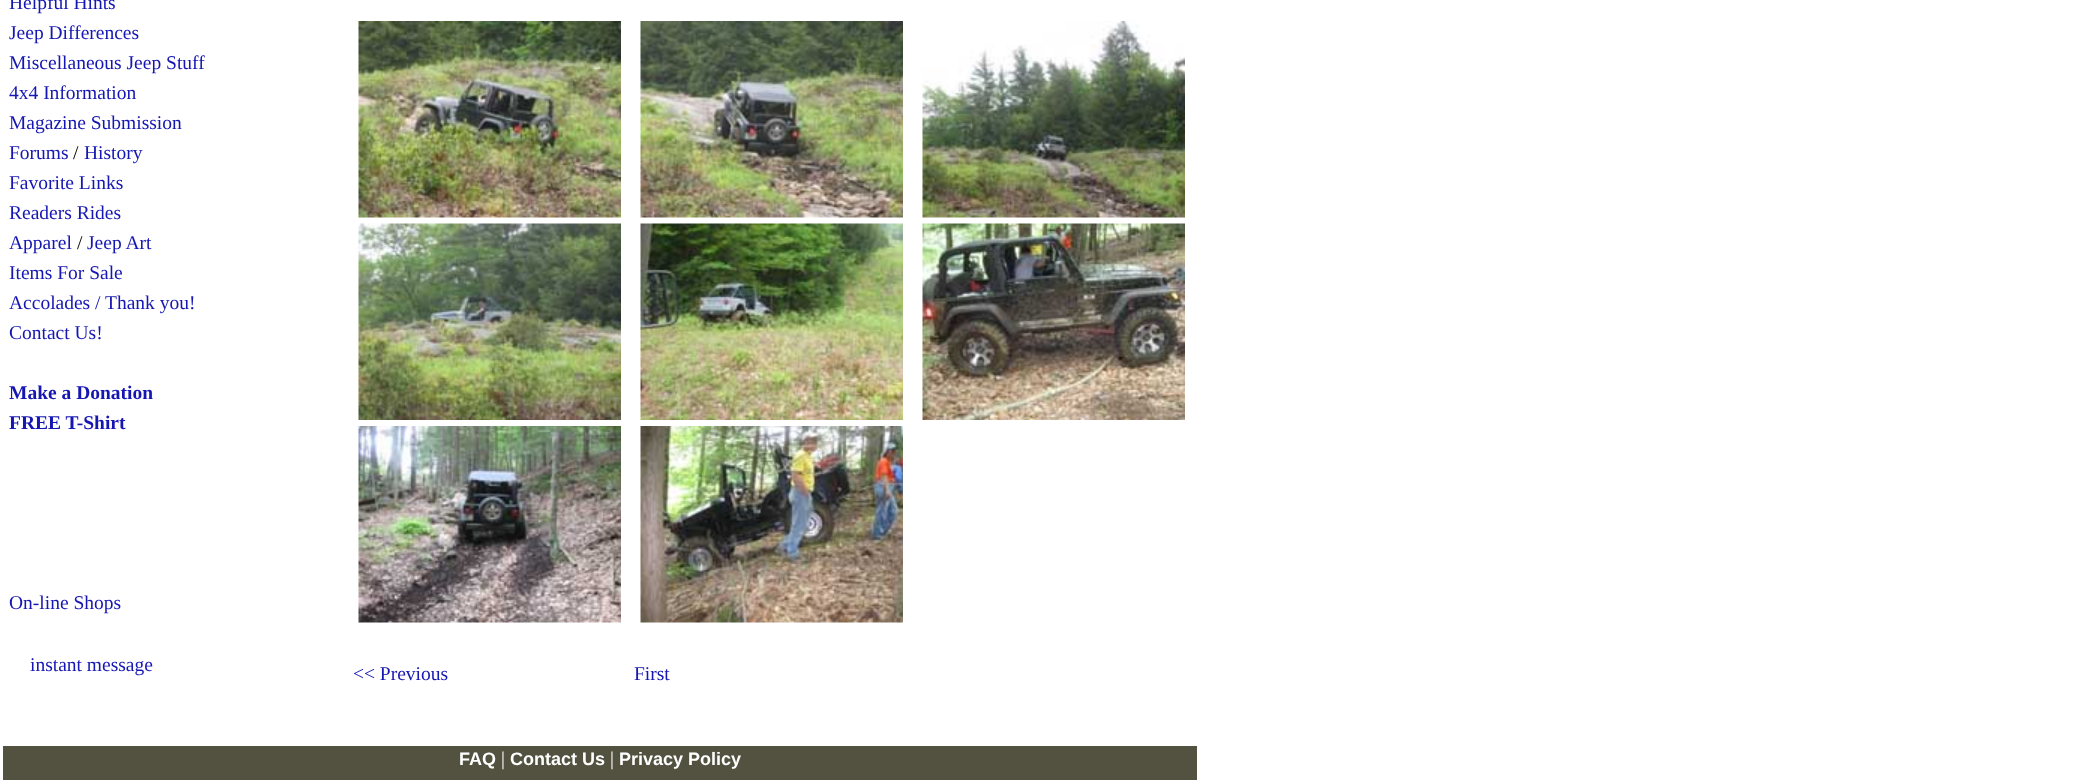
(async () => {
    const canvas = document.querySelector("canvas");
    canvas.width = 2077;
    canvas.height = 780;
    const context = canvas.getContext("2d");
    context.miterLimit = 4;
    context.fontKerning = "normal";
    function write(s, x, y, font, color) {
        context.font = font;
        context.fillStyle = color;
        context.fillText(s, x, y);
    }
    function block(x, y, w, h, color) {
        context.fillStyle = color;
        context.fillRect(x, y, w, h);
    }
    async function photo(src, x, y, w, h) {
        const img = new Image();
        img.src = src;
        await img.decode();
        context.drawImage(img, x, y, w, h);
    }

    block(0, 0, 2077, 780, "rgb(255, 255, 255)");
    write("Helpful Hints", 9, 9, "19.5px Liberation Serif", "rgb(22, 22, 178)");
    write("Jeep Differences", 9, 39, "19.5px Liberation Serif", "rgb(22, 22, 178)");
    write("Miscellaneous Jeep Stuff", 9, 69, "19.5px Liberation Serif", "rgb(22, 22, 178)");
    write("4x4 Information", 9, 99, "19.5px Liberation Serif", "rgb(22, 22, 178)");
    write("Magazine Submission", 9, 129, "19.5px Liberation Serif", "rgb(22, 22, 178)");
    write("Forums", 9, 159, "19.5px Liberation Serif", "rgb(22, 22, 178)");
    write("/", 73, 159, "19.5px Liberation Serif", "rgb(0, 0, 0)");
    write("History", 84, 159, "19.5px Liberation Serif", "rgb(22, 22, 178)");
    write("Favorite Links", 9, 189, "19.5px Liberation Serif", "rgb(22, 22, 178)");
    write("Readers Rides", 9, 219, "19.5px Liberation Serif", "rgb(22, 22, 178)");
    write("Apparel", 9, 249, "19.5px Liberation Serif", "rgb(22, 22, 178)");
    write("/", 77, 249, "19.5px Liberation Serif", "rgb(0, 0, 0)");
    write("Jeep Art", 87, 249, "19.5px Liberation Serif", "rgb(22, 22, 178)");
    write("Items For Sale", 9, 279, "19.5px Liberation Serif", "rgb(22, 22, 178)");
    write("Accolades / Thank you!", 9, 309, "19.5px Liberation Serif", "rgb(22, 22, 178)");
    write("Contact Us!", 9, 339, "19.5px Liberation Serif", "rgb(22, 22, 178)");
    write("Make a Donation", 9, 399, "bold 19.5px Liberation Serif", "rgb(22, 22, 178)");
    write("FREE T-Shirt", 9, 429, "bold 19.5px Liberation Serif", "rgb(22, 22, 178)");
    write("On-line Shops", 9, 609, "19.5px Liberation Serif", "rgb(22, 22, 178)");
    write("instant message", 30, 671, "19.5px Liberation Serif", "rgb(22, 22, 178)");
    await photo("media/1.png", 358, 21, 263, 197);
    await photo("media/2.png", 640, 21, 263, 197);
    await photo("media/3.png", 922, 21, 263, 197);
    await photo("media/4.png", 358, 223, 263, 197);
    await photo("media/5.png", 640, 223, 263, 197);
    await photo("media/6.png", 922, 223, 263, 197);
    await photo("media/7.png", 358, 426, 263, 197);
    await photo("media/8.png", 640, 426, 263, 197);
    write("<< Previous", 353, 680, "19.5px Liberation Serif", "rgb(22, 22, 178)");
    write("First", 634, 680, "19.5px Liberation Serif", "rgb(22, 22, 178)");
    block(3, 746, 1194, 34, "rgb(83, 82, 64)");
    write("FAQ", 459, 765, "bold 18px Liberation Sans", "rgb(255, 255, 255)");
    write("|", 501, 765, "19.5px Liberation Serif", "rgb(255, 255, 255)");
    write("Contact Us", 510, 765, "bold 18px Liberation Sans", "rgb(255, 255, 255)");
    write("|", 610, 765, "19.5px Liberation Serif", "rgb(255, 255, 255)");
    write("Privacy Policy", 619, 765, "bold 18px Liberation Sans", "rgb(255, 255, 255)");
})();
